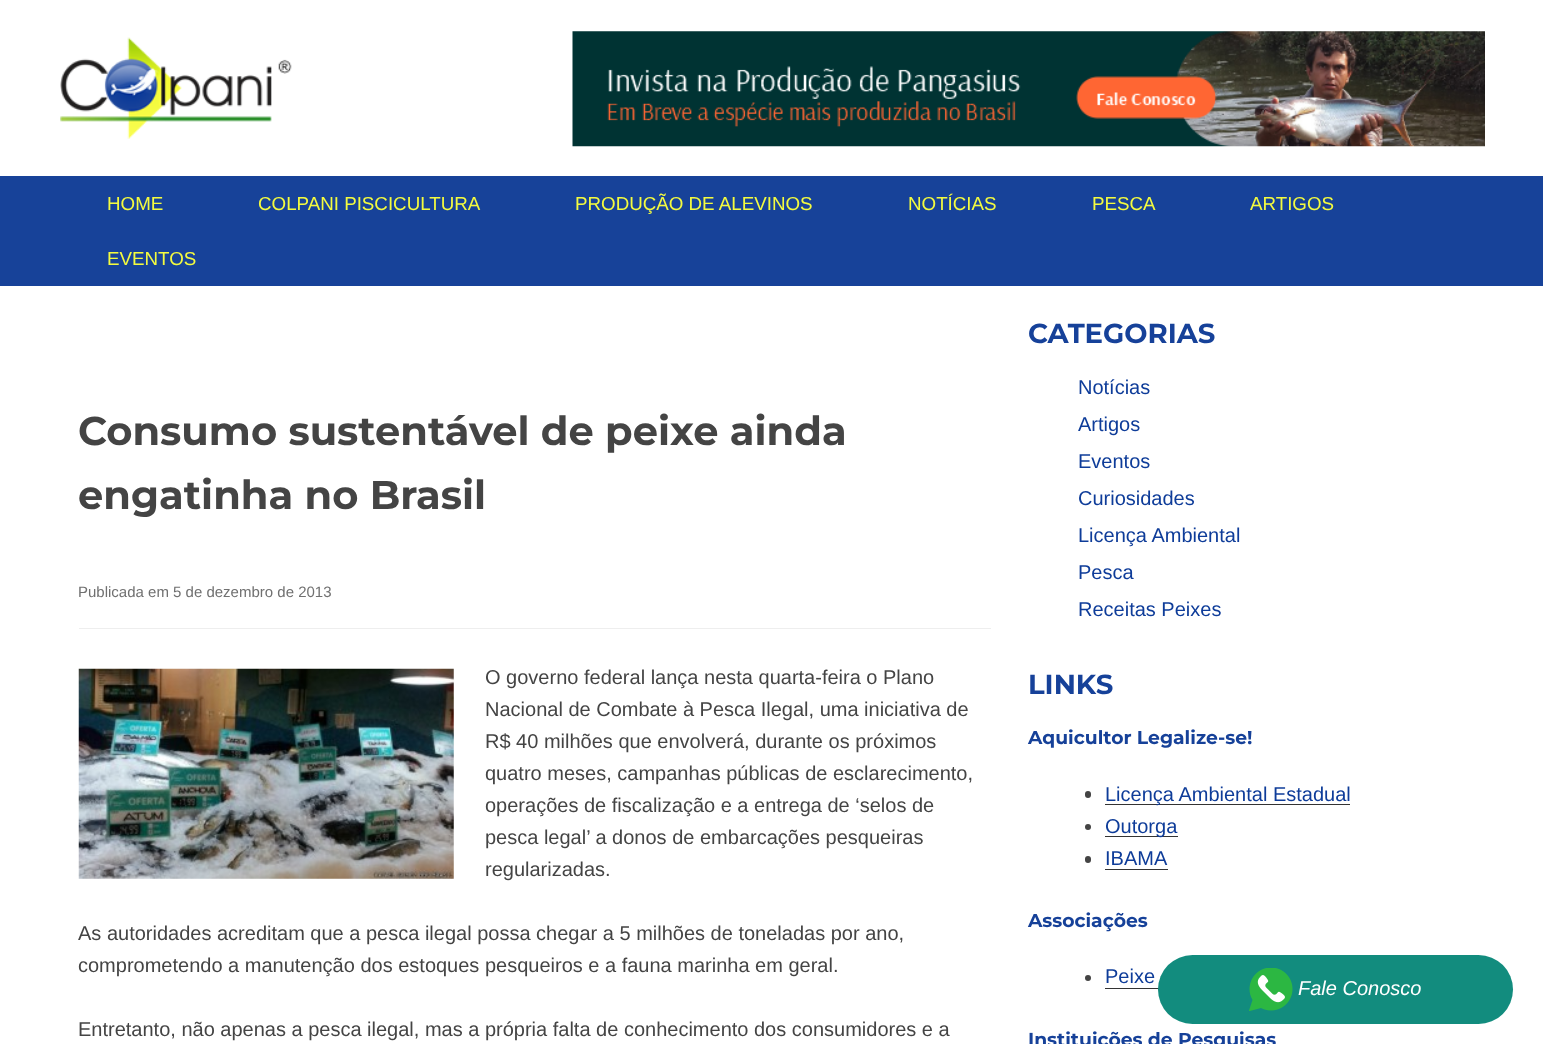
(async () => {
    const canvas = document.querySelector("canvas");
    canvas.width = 1543;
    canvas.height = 1044;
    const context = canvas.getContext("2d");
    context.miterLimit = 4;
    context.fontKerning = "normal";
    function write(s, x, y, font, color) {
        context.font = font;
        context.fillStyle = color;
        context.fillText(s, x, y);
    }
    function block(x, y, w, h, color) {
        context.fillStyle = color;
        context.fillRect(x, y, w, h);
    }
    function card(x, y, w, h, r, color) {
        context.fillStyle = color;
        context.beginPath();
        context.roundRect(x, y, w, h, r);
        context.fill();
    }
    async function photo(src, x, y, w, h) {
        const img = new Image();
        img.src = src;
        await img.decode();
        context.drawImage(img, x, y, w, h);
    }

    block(0, 0, 1543, 1044, "rgb(255, 255, 255)");
    await photo("media/1.png", 60, 37, 232, 102);
    await photo("media/2.png", 572, 31, 913, 116);
    block(0, 176, 1543, 110, "rgb(23, 66, 153)");
    write("HOME", 107, 210, "18.75px Liberation Sans", "rgb(244, 251, 63)");
    write("COLPANI PISCICULTURA", 258, 210, "18.75px Liberation Sans", "rgb(244, 251, 63)");
    write("PRODUÇÃO DE ALEVINOS", 575, 210, "18.75px Liberation Sans", "rgb(244, 251, 63)");
    write("NOTÍCIAS", 908, 210, "18.75px Liberation Sans", "rgb(244, 251, 63)");
    write("PESCA", 1092, 210, "18.75px Liberation Sans", "rgb(244, 251, 63)");
    write("ARTIGOS", 1250, 210, "18.75px Liberation Sans", "rgb(244, 251, 63)");
    write("EVENTOS", 107, 265, "18.75px Liberation Sans", "rgb(244, 251, 63)");
    write("Consumo sustentável de peixe ainda", 78, 445, "bold 40px Montserrat", "rgb(68, 68, 68)");
    write("engatinha no Brasil", 78, 509, "bold 40px Montserrat", "rgb(68, 68, 68)");
    block(79, 628, 912, 1, "rgb(238, 238, 238)");
    write("Publicada em 5 de dezembro de 2013", 78, 597, "15px Liberation Sans", "rgb(112, 112, 112)");
    await photo("media/3.png", 78, 668, 376, 211);
    write("O governo federal lança nesta quarta-feira o Plano", 485, 684, "20px Liberation Sans", "rgb(68, 68, 68)");
    write("Nacional de Combate à Pesca Ilegal, uma iniciativa de", 485, 716, "20px Liberation Sans", "rgb(68, 68, 68)");
    write("R$ 40 milhões que envolverá, durante os próximos", 485, 748, "20px Liberation Sans", "rgb(68, 68, 68)");
    write("quatro meses, campanhas públicas de esclarecimento,", 485, 780, "20px Liberation Sans", "rgb(68, 68, 68)");
    write("operações de fiscalização e a entrega de ‘selos de", 485, 812, "20px Liberation Sans", "rgb(68, 68, 68)");
    write("pesca legal’ a donos de embarcações pesqueiras", 485, 844, "20px Liberation Sans", "rgb(68, 68, 68)");
    write("regularizadas.", 485, 876, "20px Liberation Sans", "rgb(68, 68, 68)");
    write("As autoridades acreditam que a pesca ilegal possa chegar a 5 milhões de toneladas por ano,", 78, 940, "20px Liberation Sans", "rgb(68, 68, 68)");
    write("comprometendo a manutenção dos estoques pesqueiros e a fauna marinha em geral.", 78, 972, "20px Liberation Sans", "rgb(68, 68, 68)");
    write("Entretanto, não apenas a pesca ilegal, mas a própria falta de conhecimento dos consumidores e a", 78, 1036, "20px Liberation Sans", "rgb(68, 68, 68)");
    write("CATEGORIAS", 1028, 343, "bold 27.5px Montserrat", "rgb(22, 65, 153)");
    write("Notícias", 1078, 394, "20px Liberation Sans", "rgb(14, 60, 153)");
    write("Artigos", 1078, 431, "20px Liberation Sans", "rgb(14, 60, 153)");
    write("Eventos", 1078, 468, "20px Liberation Sans", "rgb(14, 60, 153)");
    write("Curiosidades", 1078, 505, "20px Liberation Sans", "rgb(14, 60, 153)");
    write("Licença Ambiental", 1078, 542, "20px Liberation Sans", "rgb(14, 60, 153)");
    write("Pesca", 1078, 579, "20px Liberation Sans", "rgb(14, 60, 153)");
    write("Receitas Peixes", 1078, 616, "20px Liberation Sans", "rgb(14, 60, 153)");
    write("LINKS", 1028, 694, "bold 27.5px Montserrat", "rgb(22, 65, 153)");
    write("Aquicultor Legalize-se!", 1028, 744, "bold 18.75px Montserrat", "rgb(22, 65, 153)");
    card(1085, 791, 6, 7, 3, "rgb(68, 68, 68)");
    block(1105, 804, 245, 1, "rgb(51, 51, 51)");
    write("Licença Ambiental Estadual", 1105, 801, "20px Liberation Sans", "rgb(14, 60, 153)");
    context.fillStyle = "rgb(68, 68, 68)";
    context.beginPath();
    context.arc(1088, 827, 3, 0, Math.PI * 2);
    context.fill();
    block(1105, 836, 73, 1, "rgb(51, 51, 51)");
    write("Outorga", 1105, 833, "20px Liberation Sans", "rgb(14, 60, 153)");
    card(1085, 856, 6, 7, 3, "rgb(68, 68, 68)");
    write("IBAMA", 1105, 865, "20px Liberation Sans", "rgb(14, 60, 153)");
    block(1105, 869, 63, 1, "rgb(51, 51, 51)");
    write("Associações", 1028, 927, "bold 18.75px Montserrat", "rgb(22, 65, 153)");
    context.fillStyle = "rgb(68, 68, 68)";
    context.beginPath();
    context.arc(1088, 978, 3, 0, Math.PI * 2);
    context.fill();
    write("Peixe", 1105, 983, "20px Liberation Sans", "rgb(14, 60, 153)");
    block(1105, 988, 54, 1, "rgb(51, 51, 51)");
    write("Instituições de Pesquisas", 1028, 1046, "bold 18.75px Montserrat", "rgb(22, 65, 153)");
    card(1158, 955, 355, 69, 34.5, "rgb(18, 140, 126)");
    await photo("media/4.png", 1249, 968, 44, 43);
    write("Fale Conosco", 1298, 995, "italic 20px Liberation Sans", "rgb(255, 255, 255)");
})();
